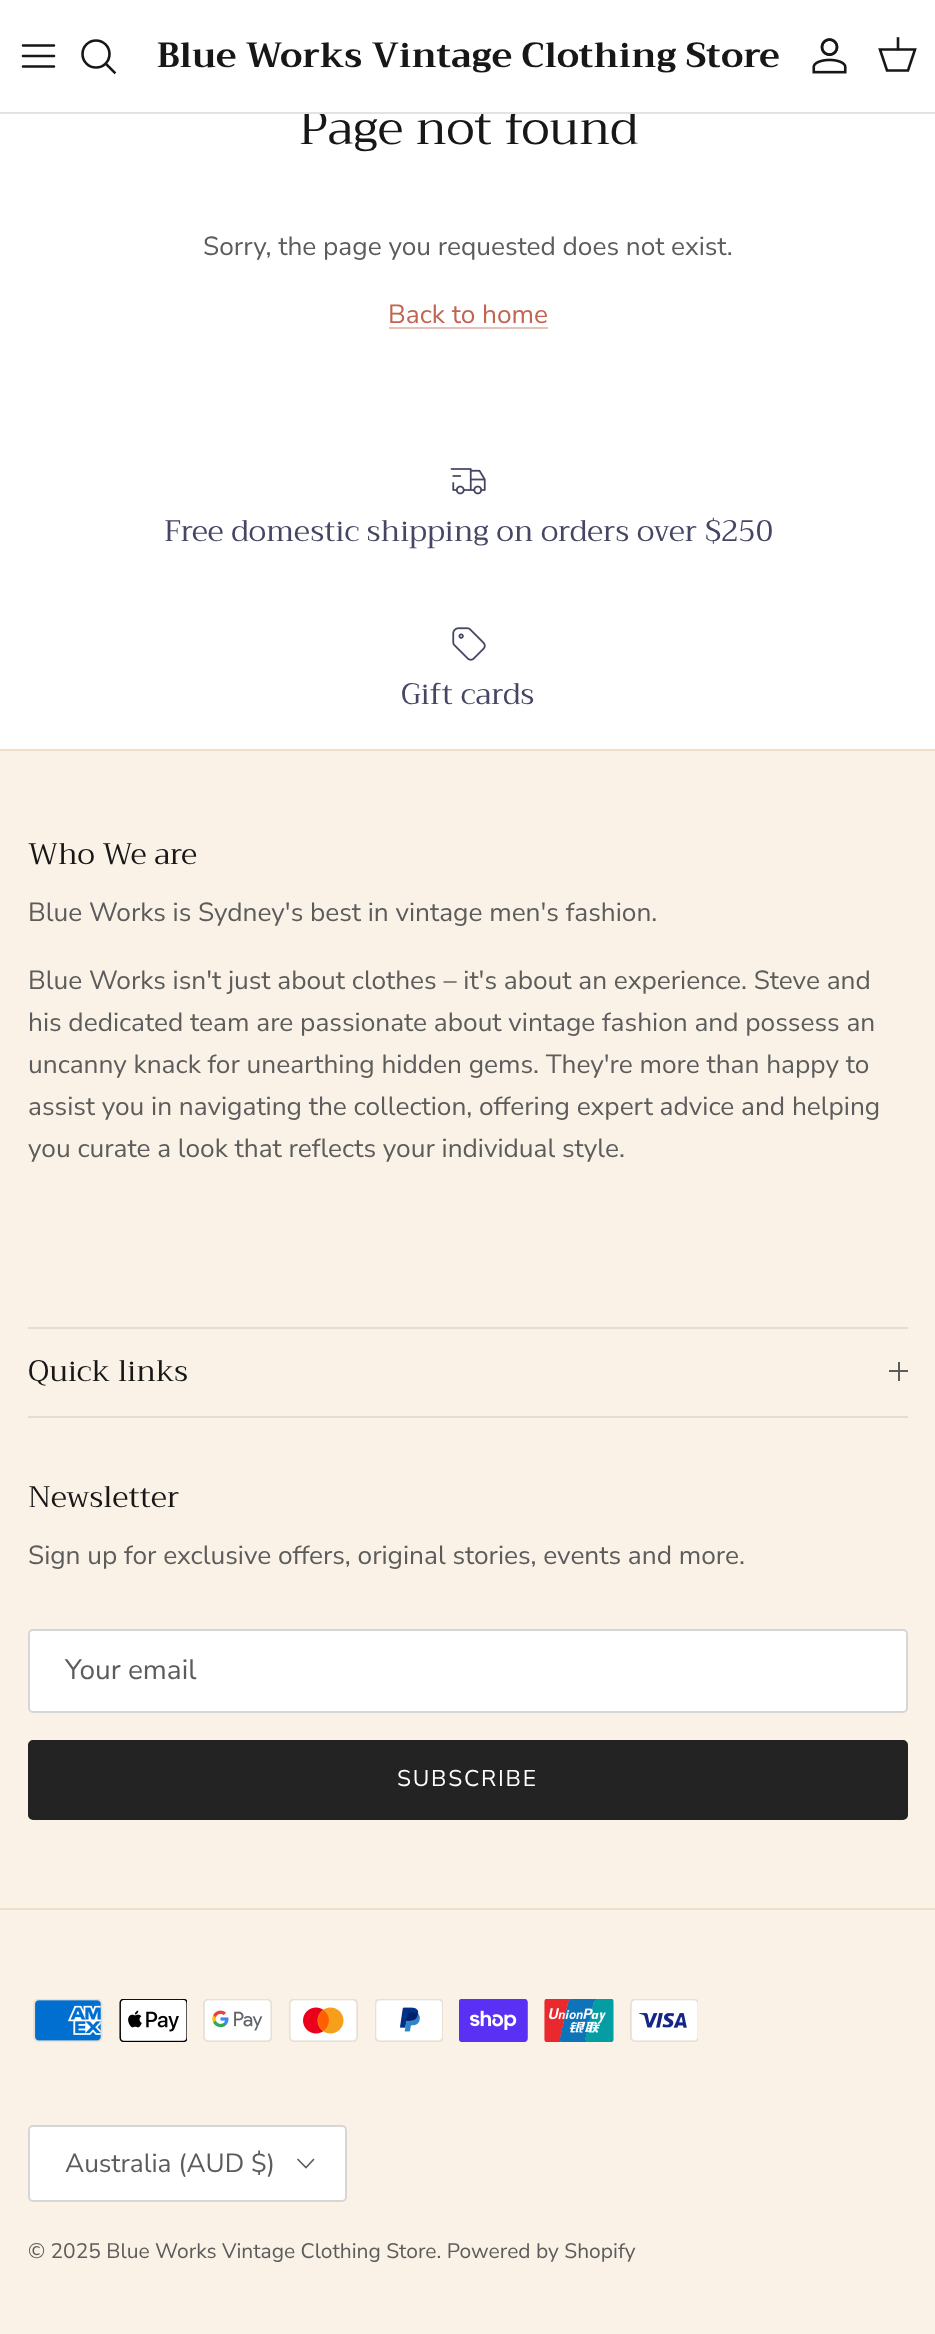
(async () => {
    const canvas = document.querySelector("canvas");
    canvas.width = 935;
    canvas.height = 2334;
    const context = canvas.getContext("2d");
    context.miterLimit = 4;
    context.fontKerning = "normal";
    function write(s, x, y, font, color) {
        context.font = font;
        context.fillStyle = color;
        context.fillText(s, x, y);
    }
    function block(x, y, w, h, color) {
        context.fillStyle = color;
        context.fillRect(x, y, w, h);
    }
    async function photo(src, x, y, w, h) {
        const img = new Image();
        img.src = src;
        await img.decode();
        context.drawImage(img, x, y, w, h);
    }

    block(0, 0, 935, 2334, "rgb(255, 255, 255)");
    write("Page not found", 299, 144, "47.25px Trirong", "rgb(23, 23, 23)");
    block(300, 110, 335, 2, "rgb(255, 255, 255)");
    block(0, 112, 935, 2, "rgb(223, 227, 232)");
    context.beginPath();
    context.moveTo(23, 56);
    context.lineTo(54, 56);
    context.moveTo(23, 45.5);
    context.lineTo(54, 45.5);
    context.moveTo(23, 66.5);
    context.lineTo(54, 66.5);
    context.strokeStyle = "rgb(23, 23, 23)";
    context.lineWidth = 2.6;
    context.lineCap = "round";
    context.lineJoin = "round";
    context.stroke();
    context.beginPath();
    context.arc(96, 54, 13.5, 0, Math.PI * 2);
    context.stroke();
    context.beginPath();
    context.moveTo(106.5, 64.5);
    context.lineTo(114.5, 72.5);
    context.lineCap = "square";
    context.lineJoin = "miter";
    context.stroke();
    write("Blue Works Vintage Clothing Store", 157, 67, "bold 35px Trirong", "rgb(23, 23, 23)");
    await photo("media/1.png", 812, 38, 35, 36);
    context.beginPath();
    context.moveTo(880, 49.5);
    context.lineTo(915, 49.5);
    context.lineTo(908, 70.5);
    context.lineTo(887, 70.5);
    context.closePath();
    context.lineCap = "butt";
    context.stroke();
    context.beginPath();
    context.moveTo(898, 49);
    context.lineTo(898, 38.5);
    context.lineCap = "square";
    context.stroke();
    write("Sorry, the page you requested does not exist.", 203, 255, "26.25px Nunito Sans", "rgb(92, 92, 92)");
    write("Back to home", 388, 323, "26.25px Nunito Sans", "rgb(193, 100, 82)");
    block(389, 327, 159, 2, "rgb(230, 193, 186)");
    await photo("media/2.png", 450, 468, 36, 27);
    write("Free domestic shipping on orders over $250", 164, 541, "29.6px Trirong", "rgb(69, 69, 100)");
    await photo("media/3.png", 452, 627, 34, 34);
    write("Gift cards", 401, 704, "29.6px Trirong", "rgb(69, 69, 100)");
    block(0, 751, 935, 1583, "rgb(250, 242, 230)");
    block(0, 749, 935, 2, "rgb(239, 223, 199)");
    write("Who We are", 28, 864, "29.6px Trirong", "rgb(23, 23, 23)");
    write("Blue Works is Sydney's best in vintage men's fashion.", 28, 921, "26.25px Nunito Sans", "rgb(92, 92, 92)");
    write("Blue Works isn't just about clothes – it's about an experience. Steve and", 28, 989, "26.25px Nunito Sans", "rgb(92, 92, 92)");
    write("his dedicated team are passionate about vintage fashion and possess an", 28, 1031, "26.25px Nunito Sans", "rgb(92, 92, 92)");
    write("uncanny knack for unearthing hidden gems. They're more than happy to", 28, 1073, "26.25px Nunito Sans", "rgb(92, 92, 92)");
    write("assist you in navigating the collection, offering expert advice and helping", 28, 1115, "26.25px Nunito Sans", "rgb(92, 92, 92)");
    write("you curate a look that reflects your individual style.", 28, 1157, "26.25px Nunito Sans", "rgb(92, 92, 92)");
    block(28, 1327, 880, 2, "rgb(226, 220, 209)");
    block(28, 1416, 880, 2, "rgb(226, 220, 209)");
    write("Quick links", 28, 1381, "29.6px Trirong", "rgb(23, 23, 23)");
    block(898, 1362, 2, 19, "rgb(92, 92, 92)");
    block(889, 1370, 19, 2, "rgb(92, 92, 92)");
    write("Newsletter", 28, 1507, "29.6px Trirong", "rgb(23, 23, 23)");
    write("Sign up for exclusive offers, original stories, events and more.", 28, 1564, "26.25px Nunito Sans", "rgb(92, 92, 92)");
    context.fillStyle = "rgb(255, 255, 255)";
    context.beginPath();
    context.roundRect(29, 1630, 878, 82, 4);
    context.fill();
    context.strokeStyle = "rgb(214, 214, 214)";
    context.lineWidth = 2;
    context.stroke();
    write("Your email", 65, 1679, "28px Nunito Sans", "rgb(92, 92, 92)");
    context.fillStyle = "rgb(35, 35, 35)";
    context.beginPath();
    context.roundRect(29, 1741, 878, 78, 4);
    context.fill();
    context.strokeStyle = "rgb(35, 35, 35)";
    context.stroke();
    context.letterSpacing = "1.75px";
    write("SUBSCRIBE", 397, 1786, "22.75px Nunito Sans", "rgb(255, 255, 255)");
    block(0, 1908, 935, 2, "rgb(239, 223, 199)");
    await photo("media/4.png", 33, 1999, 70, 43);
    await photo("media/5.png", 119, 1999, 68, 43);
    await photo("media/6.png", 203, 1999, 69, 43);
    await photo("media/7.png", 289, 1999, 69, 43);
    await photo("media/8.png", 375, 1999, 68, 43);
    await photo("media/9.png", 459, 1999, 69, 43);
    await photo("media/10.png", 544, 1999, 70, 43);
    await photo("media/11.png", 630, 1999, 68, 43);
    context.fillStyle = "rgb(255, 255, 255)";
    context.beginPath();
    context.roundRect(29, 2126, 317, 75, 4);
    context.fill();
    context.strokeStyle = "rgb(214, 214, 214)";
    context.stroke();
    context.letterSpacing = "0px";
    write("Australia (AUD $)", 65, 2172, "26.25px Nunito Sans", "rgb(92, 92, 92)");
    context.beginPath();
    context.moveTo(314, 2159);
    context.lineTo(306, 2167.5);
    context.lineTo(297.5, 2159);
    context.strokeStyle = "rgb(92, 92, 92)";
    context.lineWidth = 1.6;
    context.lineCap = "butt";
    context.stroke();
    write("© 2025 Blue Works Vintage Clothing Store. Powered by Shopify", 28, 2258, "21px Nunito Sans", "rgb(92, 92, 92)");
})();
